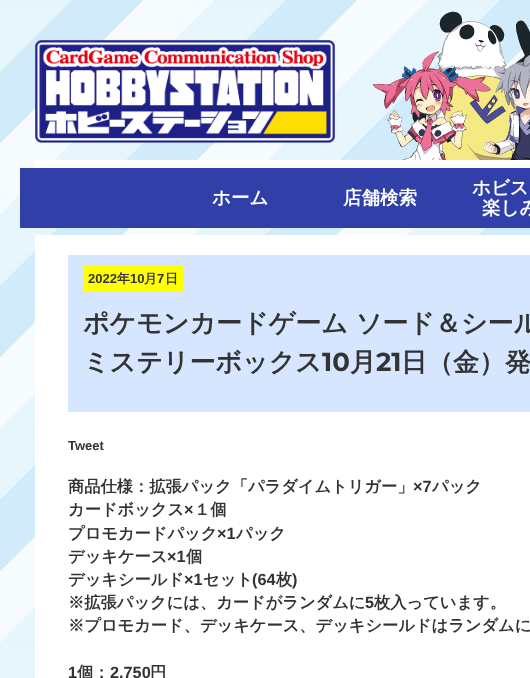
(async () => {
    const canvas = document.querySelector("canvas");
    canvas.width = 530;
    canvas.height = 678;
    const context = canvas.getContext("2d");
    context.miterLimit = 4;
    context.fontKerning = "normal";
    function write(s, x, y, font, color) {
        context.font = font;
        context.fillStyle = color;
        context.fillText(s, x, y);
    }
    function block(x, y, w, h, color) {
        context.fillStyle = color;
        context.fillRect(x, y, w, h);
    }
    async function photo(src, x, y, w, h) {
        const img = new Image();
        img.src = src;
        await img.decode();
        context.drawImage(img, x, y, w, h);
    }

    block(0, 0, 530, 678, "rgb(255, 255, 255)");
    await photo("media/1.png", 0, 0, 530, 678);
    await photo("media/2.png", 35, 40, 300, 103);
    await photo("media/3.png", 372, 11, 158, 149);
    block(35, 160, 495, 8, "rgb(255, 255, 255)");
    block(20, 168, 510, 60, "rgb(49, 63, 168)");
    write("ホーム", 212, 204, "bold 18.5px WenQuanYi Zen Hei", "rgb(255, 255, 255)");
    write("店舗検索", 343, 204, "bold 18.5px WenQuanYi Zen Hei", "rgb(255, 255, 255)");
    write("ホビス", 472, 194, "bold 18.5px WenQuanYi Zen Hei", "rgb(255, 255, 255)");
    write("楽しみ", 482, 214, "bold 18.5px WenQuanYi Zen Hei", "rgb(255, 255, 255)");
    block(35, 235, 495, 443, "rgb(255, 255, 255)");
    block(68, 255, 462, 157, "rgb(214, 230, 255)");
    block(83, 266, 100, 25, "rgb(255, 255, 0)");
    write("2022", 88, 283, "bold 13px Liberation Sans", "rgb(51, 51, 51)");
    write("年", 117, 283, "bold 13px WenQuanYi Zen Hei", "rgb(51, 51, 51)");
    write("10", 130, 283, "bold 13px Liberation Sans", "rgb(51, 51, 51)");
    write("月", 144, 283, "bold 13px WenQuanYi Zen Hei", "rgb(51, 51, 51)");
    write("7", 157, 283, "bold 13px Liberation Sans", "rgb(51, 51, 51)");
    write("日", 165, 283, "bold 13px WenQuanYi Zen Hei", "rgb(51, 51, 51)");
    write("ポケモンカードゲーム ソード＆シール", 83, 332, "bold 26px WenQuanYi Zen Hei", "rgb(51, 51, 51)");
    write("ミステリーボックス", 83, 371, "bold 26px WenQuanYi Zen Hei", "rgb(51, 51, 51)");
    write("10", 322, 371, "bold 26px Montserrat", "rgb(51, 51, 51)");
    write("月", 350, 371, "bold 26px WenQuanYi Zen Hei", "rgb(51, 51, 51)");
    write("21", 376, 371, "bold 26px Montserrat", "rgb(51, 51, 51)");
    write("日（金）発", 401, 371, "bold 26px WenQuanYi Zen Hei", "rgb(51, 51, 51)");
    write("Tweet", 68, 450, "bold 13px Liberation Sans", "rgb(51, 51, 51)");
    write("商品仕様：拡張パック「パラダイムトリガー」", 68, 492, "bold 16.25px WenQuanYi Zen Hei", "rgb(51, 51, 51)");
    write("×7", 413, 492, "bold 16.25px Liberation Sans", "rgb(51, 51, 51)");
    write("パック", 432, 492, "bold 16.25px WenQuanYi Zen Hei", "rgb(51, 51, 51)");
    write("カードボックス", 68, 515, "bold 16.25px WenQuanYi Zen Hei", "rgb(51, 51, 51)");
    write("×", 184, 515, "bold 16.25px Liberation Sans", "rgb(51, 51, 51)");
    write("１個", 194, 515, "bold 16.25px WenQuanYi Zen Hei", "rgb(51, 51, 51)");
    write("プロモカードパック", 68, 539, "bold 16.25px WenQuanYi Zen Hei", "rgb(51, 51, 51)");
    write("×1", 217, 539, "bold 16.25px Liberation Sans", "rgb(51, 51, 51)");
    write("パック", 236, 539, "bold 16.25px WenQuanYi Zen Hei", "rgb(51, 51, 51)");
    write("デッキケース", 68, 562, "bold 16.25px WenQuanYi Zen Hei", "rgb(51, 51, 51)");
    write("×1", 167, 562, "bold 16.25px Liberation Sans", "rgb(51, 51, 51)");
    write("個", 186, 562, "bold 16.25px WenQuanYi Zen Hei", "rgb(51, 51, 51)");
    write("デッキシールド", 68, 585, "bold 16.25px WenQuanYi Zen Hei", "rgb(51, 51, 51)");
    write("×1", 184, 585, "bold 16.25px Liberation Sans", "rgb(51, 51, 51)");
    write("セット", 203, 585, "bold 16.25px WenQuanYi Zen Hei", "rgb(51, 51, 51)");
    write("(64", 252, 585, "bold 16.25px Liberation Sans", "rgb(51, 51, 51)");
    write("枚", 276, 585, "bold 16.25px WenQuanYi Zen Hei", "rgb(51, 51, 51)");
    write(")", 292, 585, "bold 16.25px Liberation Sans", "rgb(51, 51, 51)");
    write("※拡張パックには、カードがランダムに", 68, 608, "bold 16.25px WenQuanYi Zen Hei", "rgb(51, 51, 51)");
    write("5", 365, 608, "bold 16.25px Liberation Sans", "rgb(51, 51, 51)");
    write("枚入っています。", 374, 608, "bold 16.25px WenQuanYi Zen Hei", "rgb(51, 51, 51)");
    write("※プロモカード、デッキケース、デッキシールドはランダムに", 68, 631, "bold 16.25px WenQuanYi Zen Hei", "rgb(51, 51, 51)");
    write("1", 68, 678, "bold 16.25px Liberation Sans", "rgb(51, 51, 51)");
    write("個：", 77, 678, "bold 16.25px WenQuanYi Zen Hei", "rgb(51, 51, 51)");
    write("2,750", 110, 678, "bold 16.25px Liberation Sans", "rgb(51, 51, 51)");
    write("円", 150, 678, "bold 16.25px WenQuanYi Zen Hei", "rgb(51, 51, 51)");
})();
